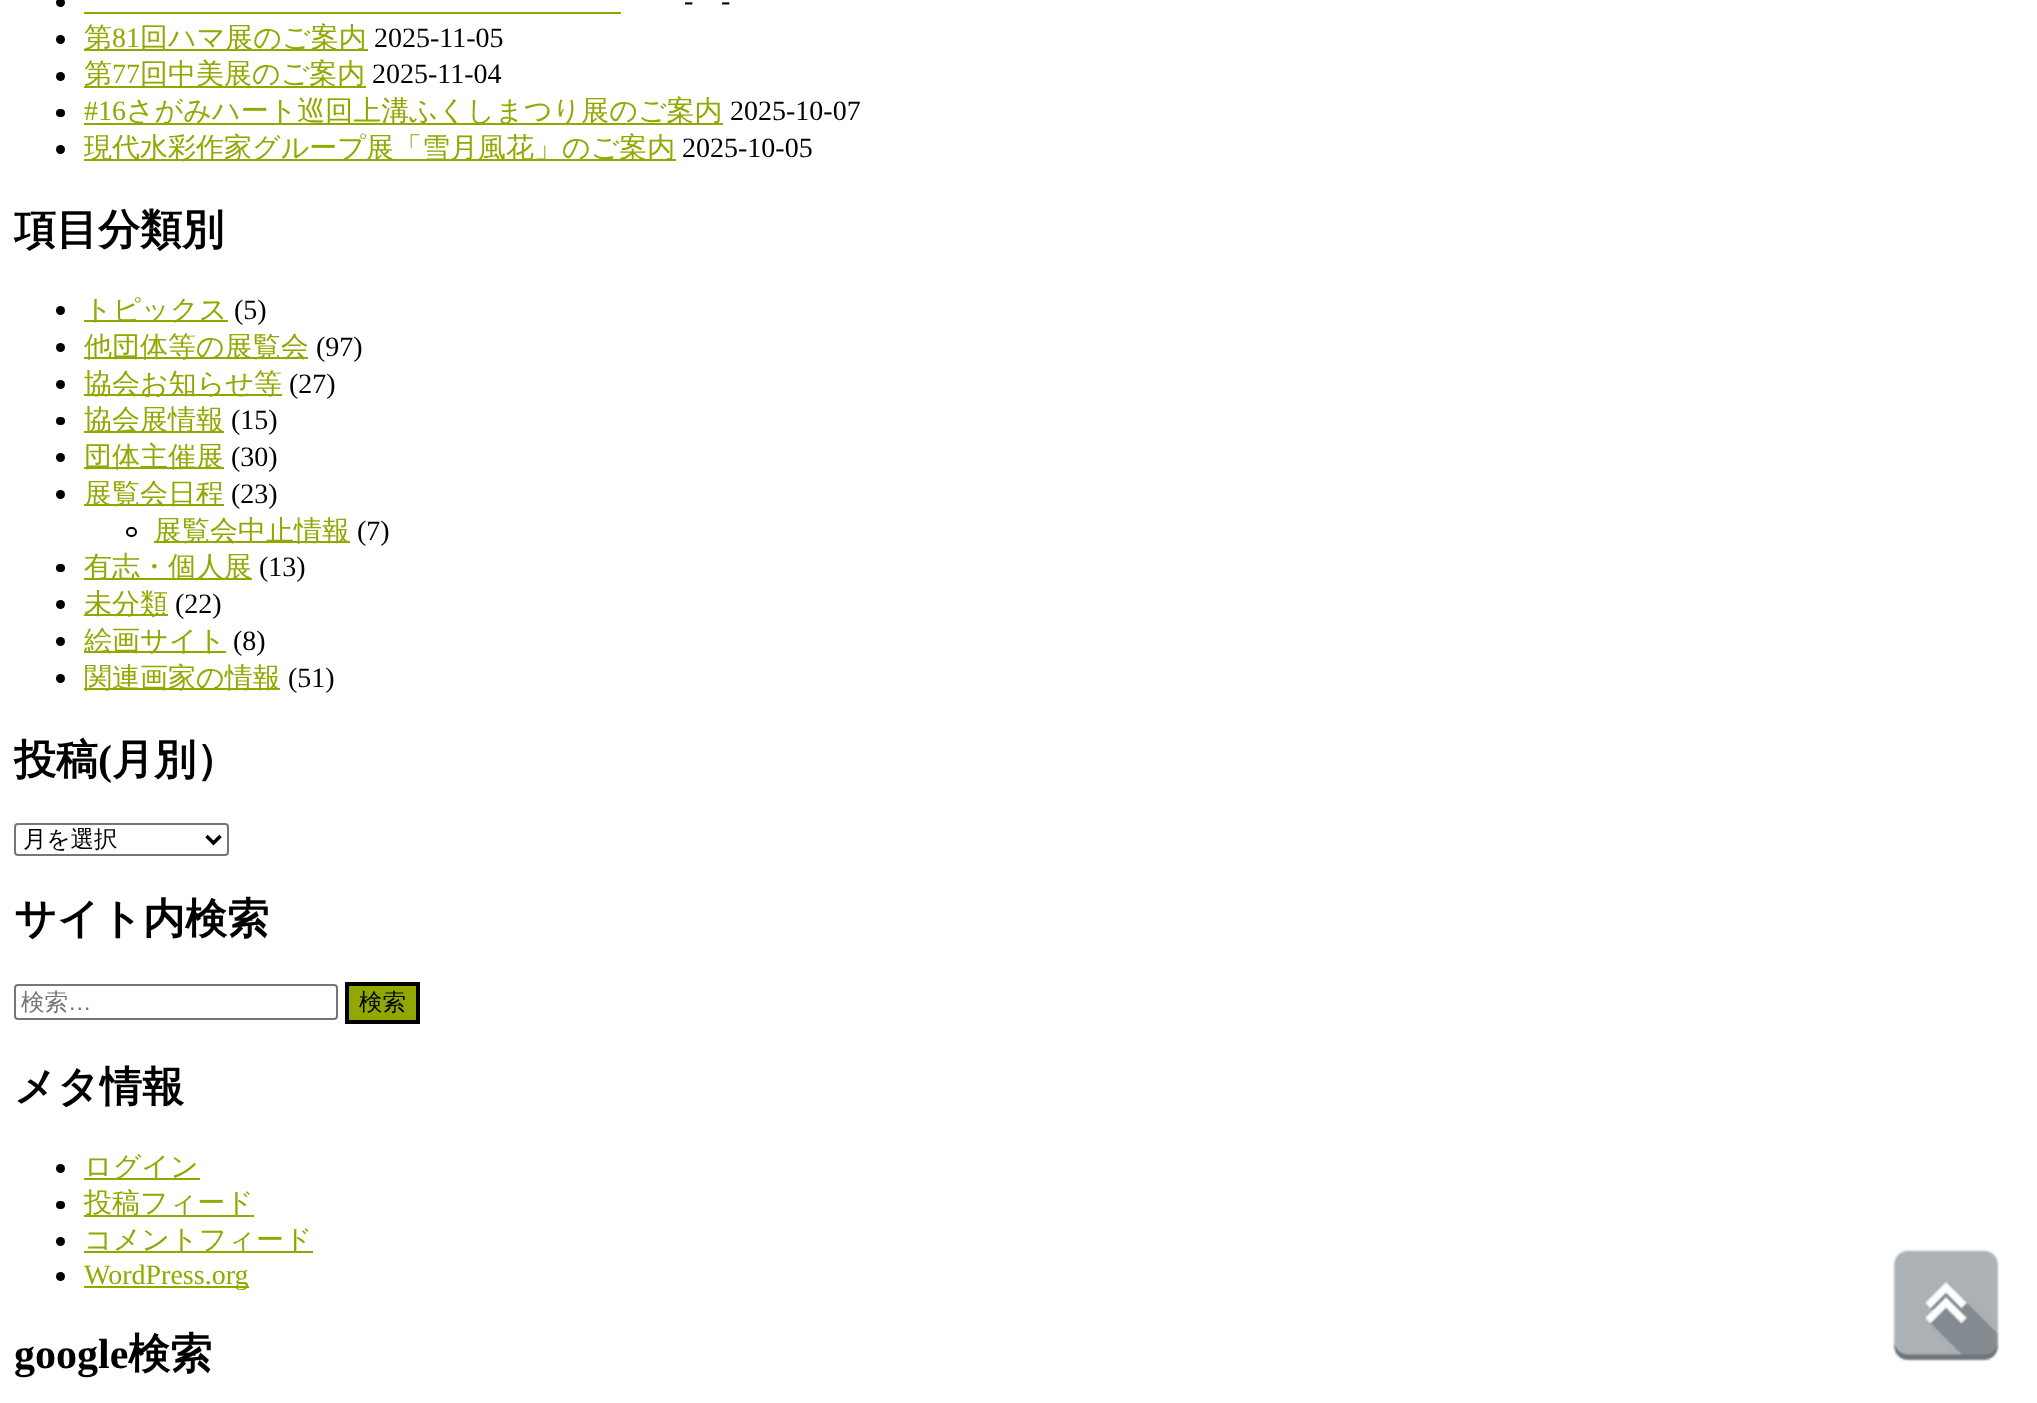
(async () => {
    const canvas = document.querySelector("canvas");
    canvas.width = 2037;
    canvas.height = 1403;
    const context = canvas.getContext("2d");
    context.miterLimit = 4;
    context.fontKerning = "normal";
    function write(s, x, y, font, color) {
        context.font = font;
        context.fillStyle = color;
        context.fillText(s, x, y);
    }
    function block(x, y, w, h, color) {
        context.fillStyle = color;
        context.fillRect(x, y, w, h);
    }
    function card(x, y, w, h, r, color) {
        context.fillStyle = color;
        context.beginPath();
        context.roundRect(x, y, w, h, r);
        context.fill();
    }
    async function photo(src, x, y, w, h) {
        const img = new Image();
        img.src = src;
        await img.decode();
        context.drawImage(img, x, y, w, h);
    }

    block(0, 0, 2037, 1403, "rgb(255, 255, 255)");
    context.fillStyle = "rgb(0, 0, 0)";
    context.beginPath();
    context.arc(60.5, 2.5, 4.5, 0, Math.PI * 2);
    context.fill();
    write("-", 684, 10, "28px Liberation Serif", "rgb(0, 0, 0)");
    write("-", 721, 10, "28px Liberation Serif", "rgb(0, 0, 0)");
    block(84, 12, 537, 2, "rgb(146, 168, 0)");
    context.fillStyle = "rgb(0, 0, 0)";
    context.beginPath();
    context.arc(60.5, 39.5, 4.5, 0, Math.PI * 2);
    context.fill();
    block(84, 49, 284, 2, "rgb(146, 168, 0)");
    write("第", 84, 47, "500 28px WenQuanYi Zen Hei", "rgb(146, 168, 0)");
    write("81", 112, 47, "28px Liberation Serif", "rgb(146, 168, 0)");
    write("回ハマ展のご案内", 140, 47, "500 28px WenQuanYi Zen Hei", "rgb(146, 168, 0)");
    write("2025-11-05", 374, 47, "28px Liberation Serif", "rgb(0, 0, 0)");
    context.beginPath();
    context.arc(60.5, 76.5, 4.5, 0, Math.PI * 2);
    context.fill();
    block(84, 86, 282, 2, "rgb(146, 168, 0)");
    write("第", 84, 83, "500 28px WenQuanYi Zen Hei", "rgb(146, 168, 0)");
    write("77", 112, 83, "28px Liberation Serif", "rgb(146, 168, 0)");
    write("回中美展のご案内", 140, 83, "500 28px WenQuanYi Zen Hei", "rgb(146, 168, 0)");
    write("2025-11-04", 372, 83, "28px Liberation Serif", "rgb(0, 0, 0)");
    card(56, 109, 9, 8, 4, "rgb(0, 0, 0)");
    write("#16", 84, 120, "28px Liberation Serif", "rgb(146, 168, 0)");
    block(84, 123, 639, 2, "rgb(146, 168, 0)");
    write("さがみハート巡回上溝ふくしまつり展のご案内", 126, 120, "500 28px WenQuanYi Zen Hei", "rgb(146, 168, 0)");
    write("2025-10-07", 730, 120, "28px Liberation Serif", "rgb(0, 0, 0)");
    context.beginPath();
    context.arc(60.5, 149.5, 4.5, 0, Math.PI * 2);
    context.fill();
    block(84, 159, 592, 2, "rgb(146, 168, 0)");
    write("現代水彩作家グループ展「雪月風花」のご案内", 84, 157, "500 28px WenQuanYi Zen Hei", "rgb(146, 168, 0)");
    write("2025-10-05", 682, 157, "28px Liberation Serif", "rgb(0, 0, 0)");
    write("項目分類別", 14, 244, "bold 42px WenQuanYi Zen Hei", "rgb(0, 0, 0)");
    context.beginPath();
    context.arc(60.5, 310.5, 4.5, 0, Math.PI * 2);
    context.fill();
    block(84, 320, 144, 2, "rgb(146, 168, 0)");
    write("トピックス", 84, 319, "500 28px WenQuanYi Zen Hei", "rgb(146, 168, 0)");
    write("(5)", 234, 319, "28px Liberation Serif", "rgb(0, 0, 0)");
    context.beginPath();
    context.arc(60.5, 347.5, 4.5, 0, Math.PI * 2);
    context.fill();
    block(84, 357, 224, 2, "rgb(146, 168, 0)");
    write("他団体等の展覧会", 84, 356, "500 28px WenQuanYi Zen Hei", "rgb(146, 168, 0)");
    write("(97)", 316, 356, "28px Liberation Serif", "rgb(0, 0, 0)");
    context.beginPath();
    context.arc(60.5, 384.5, 4.5, 0, Math.PI * 2);
    context.fill();
    block(84, 394, 198, 2, "rgb(146, 168, 0)");
    write("協会お知らせ等", 84, 393, "500 28px WenQuanYi Zen Hei", "rgb(146, 168, 0)");
    write("(27)", 289, 393, "28px Liberation Serif", "rgb(0, 0, 0)");
    card(56, 417, 9, 8, 4, "rgb(0, 0, 0)");
    block(84, 431, 140, 2, "rgb(146, 168, 0)");
    write("協会展情報", 84, 429, "500 28px WenQuanYi Zen Hei", "rgb(146, 168, 0)");
    write("(15)", 231, 429, "28px Liberation Serif", "rgb(0, 0, 0)");
    context.beginPath();
    context.arc(60.5, 457.5, 4.5, 0, Math.PI * 2);
    context.fill();
    block(84, 467, 140, 2, "rgb(146, 168, 0)");
    write("団体主催展", 84, 466, "500 28px WenQuanYi Zen Hei", "rgb(146, 168, 0)");
    write("(30)", 231, 466, "28px Liberation Serif", "rgb(0, 0, 0)");
    context.beginPath();
    context.arc(60.5, 494.5, 4.5, 0, Math.PI * 2);
    context.fill();
    block(84, 504, 140, 2, "rgb(146, 168, 0)");
    write("展覧会日程", 84, 503, "500 28px WenQuanYi Zen Hei", "rgb(146, 168, 0)");
    write("(23)", 231, 503, "28px Liberation Serif", "rgb(0, 0, 0)");
    context.beginPath();
    context.roundRect(127, 528, 9, 8, 4);
    context.strokeStyle = "rgb(0, 0, 0)";
    context.lineWidth = 2;
    context.stroke();
    block(154, 541, 196, 2, "rgb(146, 168, 0)");
    write("展覧会中止情報", 154, 540, "500 28px WenQuanYi Zen Hei", "rgb(146, 168, 0)");
    write("(7)", 357, 540, "28px Liberation Serif", "rgb(0, 0, 0)");
    card(56, 564, 9, 8, 4, "rgb(0, 0, 0)");
    block(84, 578, 168, 2, "rgb(146, 168, 0)");
    write("有志・個人展", 84, 576, "500 28px WenQuanYi Zen Hei", "rgb(146, 168, 0)");
    write("(13)", 259, 576, "28px Liberation Serif", "rgb(0, 0, 0)");
    context.beginPath();
    context.arc(60.5, 604.5, 4.5, 0, Math.PI * 2);
    context.fill();
    block(84, 614, 84, 2, "rgb(146, 168, 0)");
    write("未分類", 84, 613, "500 28px WenQuanYi Zen Hei", "rgb(146, 168, 0)");
    write("(22)", 175, 613, "28px Liberation Serif", "rgb(0, 0, 0)");
    context.beginPath();
    context.arc(60.5, 641.5, 4.5, 0, Math.PI * 2);
    context.fill();
    block(84, 651, 142, 2, "rgb(146, 168, 0)");
    write("絵画サイト", 84, 650, "500 28px WenQuanYi Zen Hei", "rgb(146, 168, 0)");
    write("(8)", 233, 650, "28px Liberation Serif", "rgb(0, 0, 0)");
    context.beginPath();
    context.arc(60.5, 678.5, 4.5, 0, Math.PI * 2);
    context.fill();
    block(84, 688, 196, 2, "rgb(146, 168, 0)");
    write("関連画家の情報", 84, 687, "500 28px WenQuanYi Zen Hei", "rgb(146, 168, 0)");
    write("(51)", 288, 687, "28px Liberation Serif", "rgb(0, 0, 0)");
    write("投稿", 14, 774, "bold 42px WenQuanYi Zen Hei", "rgb(0, 0, 0)");
    write("(", 98, 774, "bold 42px Liberation Serif", "rgb(0, 0, 0)");
    write("月別）", 112, 774, "bold 42px WenQuanYi Zen Hei", "rgb(0, 0, 0)");
    context.beginPath();
    context.roundRect(15, 824, 213, 31, 3);
    context.strokeStyle = "rgb(118, 118, 118)";
    context.stroke();
    context.beginPath();
    context.moveTo(206.5, 836);
    context.lineTo(213.5, 843);
    context.lineTo(220.5, 836);
    context.strokeStyle = "rgb(0, 0, 0)";
    context.lineWidth = 3.5;
    context.stroke();
    write("月を選択", 23, 847, "500 23.5px WenQuanYi Zen Hei", "rgb(0, 0, 0)");
    write("サイト内検索", 14, 933, "bold 42px WenQuanYi Zen Hei", "rgb(0, 0, 0)");
    context.beginPath();
    context.roundRect(15, 985, 322, 34, 3);
    context.strokeStyle = "rgb(118, 118, 118)";
    context.lineWidth = 2;
    context.stroke();
    write("検索", 21, 1010, "500 23.5px WenQuanYi Zen Hei", "rgb(117, 117, 117)");
    write("…", 68, 1010, "23.5px Liberation Sans", "rgb(117, 117, 117)");
    context.fillStyle = "rgb(146, 168, 0)";
    context.beginPath();
    context.rect(347, 984, 71, 38);
    context.fill();
    context.strokeStyle = "rgb(0, 0, 0)";
    context.lineWidth = 4;
    context.stroke();
    write("検索", 359, 1010, "500 23.5px WenQuanYi Zen Hei", "rgb(0, 0, 0)");
    write("メタ情報", 14, 1101, "bold 42px WenQuanYi Zen Hei", "rgb(0, 0, 0)");
    context.beginPath();
    context.arc(60.5, 1168.5, 4.5, 0, Math.PI * 2);
    context.fill();
    block(84, 1178, 116, 2, "rgb(146, 168, 0)");
    write("ログイン", 84, 1176, "500 28px WenQuanYi Zen Hei", "rgb(146, 168, 0)");
    card(56, 1201, 9, 8, 4, "rgb(0, 0, 0)");
    block(84, 1215, 170, 2, "rgb(146, 168, 0)");
    write("投稿フィード", 84, 1212, "500 28px WenQuanYi Zen Hei", "rgb(146, 168, 0)");
    context.fillStyle = "rgb(0, 0, 0)";
    context.beginPath();
    context.arc(60.5, 1241.5, 4.5, 0, Math.PI * 2);
    context.fill();
    block(84, 1251, 229, 2, "rgb(146, 168, 0)");
    write("コメントフィード", 84, 1249, "500 28px WenQuanYi Zen Hei", "rgb(146, 168, 0)");
    context.fillStyle = "rgb(0, 0, 0)";
    context.beginPath();
    context.arc(60.5, 1276.5, 4.5, 0, Math.PI * 2);
    context.fill();
    block(84, 1286, 165, 2, "rgb(146, 168, 0)");
    write("WordPress.org", 84, 1284, "28px Liberation Serif", "rgb(146, 168, 0)");
    write("google", 14, 1368, "bold 42px Liberation Serif", "rgb(0, 0, 0)");
    write("検索", 128, 1368, "bold 42px WenQuanYi Zen Hei", "rgb(0, 0, 0)");
    await photo("media/1.png", 1893, 1249, 106, 113);
})();
